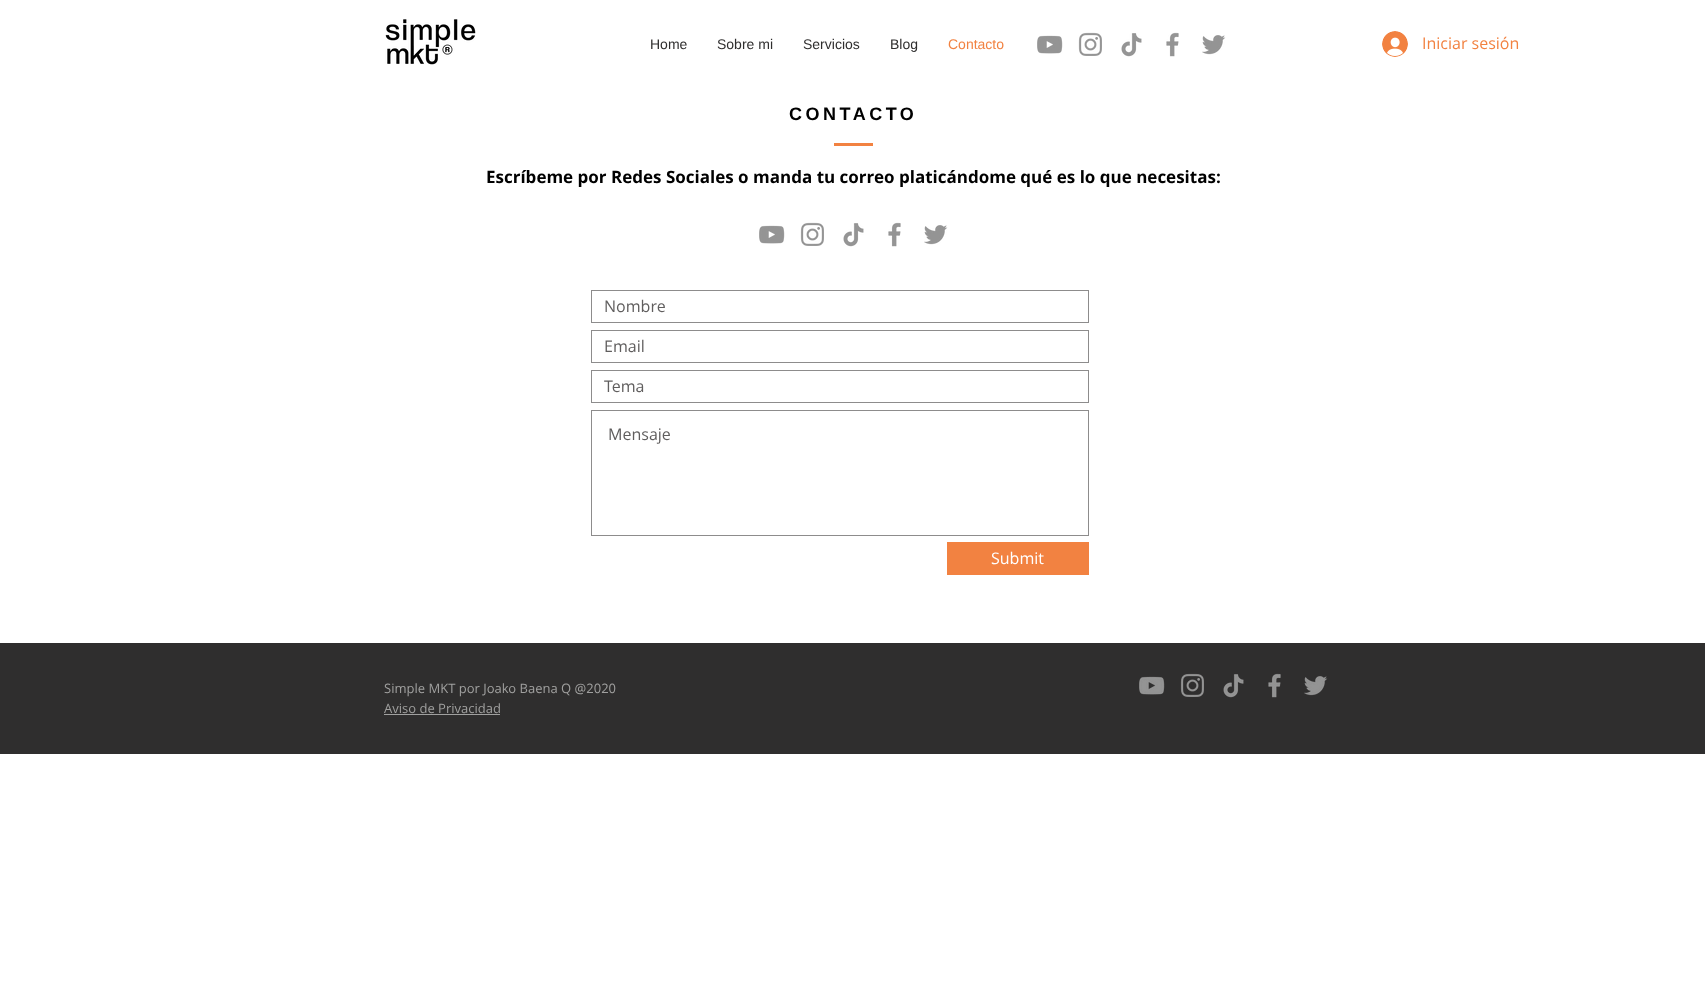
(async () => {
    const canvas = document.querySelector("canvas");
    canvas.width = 1705;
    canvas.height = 992;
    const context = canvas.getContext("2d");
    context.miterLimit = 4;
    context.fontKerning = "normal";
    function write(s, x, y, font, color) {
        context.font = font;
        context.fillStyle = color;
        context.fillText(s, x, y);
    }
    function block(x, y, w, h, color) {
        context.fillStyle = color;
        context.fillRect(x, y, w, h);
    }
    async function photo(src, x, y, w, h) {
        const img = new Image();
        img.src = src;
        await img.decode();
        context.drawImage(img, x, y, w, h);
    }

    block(0, 0, 1705, 992, "rgb(255, 255, 255)");
    await photo("media/1.png", 385, 19, 91, 46);
    write("Home", 650, 49, "14px Liberation Sans", "rgb(47, 46, 46)");
    write("Sobre mi", 717, 49, "14px Liberation Sans", "rgb(47, 46, 46)");
    write("Servicios", 803, 49, "14px Liberation Sans", "rgb(47, 46, 46)");
    write("Blog", 890, 49, "14px Liberation Sans", "rgb(47, 46, 46)");
    write("Contacto", 948, 49, "14px Liberation Sans", "rgb(242, 130, 65)");
    await photo("media/2.png", 1037, 35, 26, 19);
    await photo("media/3.png", 1078, 32, 24, 24);
    await photo("media/4.png", 1121, 33, 21, 24);
    await photo("media/5.png", 1166, 32, 13, 25);
    await photo("media/6.png", 1202, 35, 24, 20);
    await photo("media/7.png", 1382, 31, 26, 26);
    write("Iniciar sesión", 1422, 49, "16px Open Sans", "rgb(242, 130, 65)");
    context.letterSpacing = "3.5px";
    write("CONTACTO", 789, 120, "bold 18px Liberation Sans", "rgb(0, 0, 0)");
    block(834, 143, 39, 3, "rgb(242, 130, 65)");
    context.letterSpacing = "0px";
    write("Escríbeme por Redes Sociales o manda tu correo platicándome qué es lo que necesitas:", 486, 183, "bold 17px Open Sans", "rgb(0, 0, 0)");
    await photo("media/2.png", 759, 225, 26, 19);
    await photo("media/3.png", 800, 222, 24, 24);
    await photo("media/4.png", 843, 223, 21, 24);
    await photo("media/5.png", 888, 222, 13, 25);
    await photo("media/6.png", 924, 225, 24, 20);
    context.strokeStyle = "rgb(141, 140, 140)";
    context.strokeRect(591.5, 290.5, 497, 32);
    write("Nombre", 604, 312, "16px Open Sans", "rgb(96, 94, 94)");
    context.strokeRect(591.5, 330.5, 497, 32);
    write("Email", 604, 352, "16px Open Sans", "rgb(96, 94, 94)");
    context.strokeRect(591.5, 370.5, 497, 32);
    write("Tema", 604, 392, "16px Open Sans", "rgb(96, 94, 94)");
    context.strokeRect(591.5, 410.5, 497, 125);
    write("Mensaje", 608, 440, "16px Open Sans", "rgb(96, 94, 94)");
    block(947, 542, 142, 33, "rgb(242, 130, 65)");
    write("Submit", 991, 564, "16px Open Sans", "rgb(255, 255, 255)");
    block(0, 643, 1705, 111, "rgb(47, 46, 46)");
    write("Simple MKT por Joako Baena Q @2020", 384, 693, "13px Open Sans", "rgb(160, 160, 159)");
    write("Aviso de Privacidad", 384, 713, "13px Open Sans", "rgb(160, 160, 159)");
    block(384, 714, 116, 1, "rgb(160, 160, 159)");
    await photo("media/8.png", 1139, 676, 26, 19);
    await photo("media/9.png", 1180, 673, 24, 24);
    await photo("media/10.png", 1223, 674, 21, 24);
    await photo("media/11.png", 1268, 673, 13, 25);
    await photo("media/12.png", 1304, 676, 24, 20);
})();
